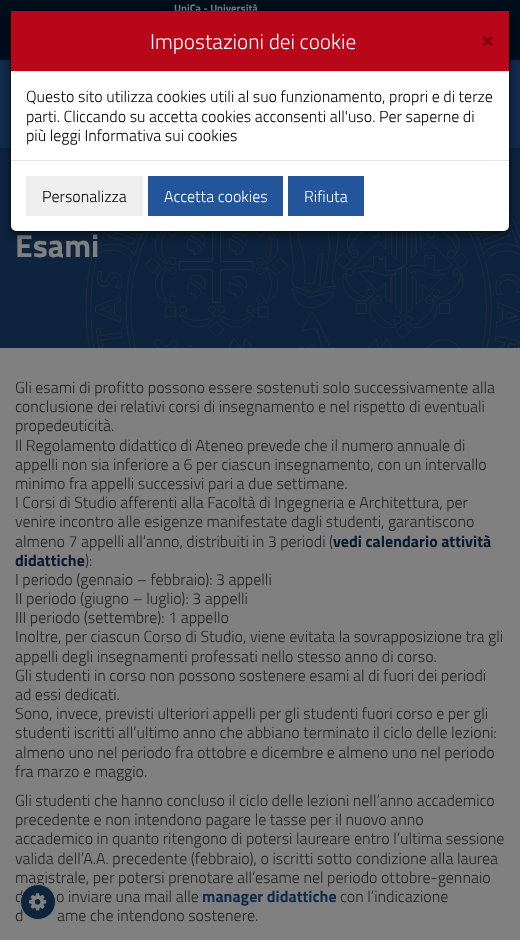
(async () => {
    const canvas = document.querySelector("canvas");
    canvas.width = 520;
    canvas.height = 940;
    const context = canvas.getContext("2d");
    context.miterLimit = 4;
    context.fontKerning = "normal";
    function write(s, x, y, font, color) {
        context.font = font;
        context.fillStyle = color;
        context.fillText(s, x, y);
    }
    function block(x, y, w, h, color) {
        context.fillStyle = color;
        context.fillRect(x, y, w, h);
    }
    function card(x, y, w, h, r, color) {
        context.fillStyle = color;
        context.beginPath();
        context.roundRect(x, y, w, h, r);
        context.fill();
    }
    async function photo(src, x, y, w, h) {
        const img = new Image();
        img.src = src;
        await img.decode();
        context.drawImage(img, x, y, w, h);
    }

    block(0, 0, 520, 940, "rgb(128, 128, 128)");
    block(0, 60, 520, 88, "rgb(17, 43, 77)");
    block(0, 0, 520, 60, "rgb(0, 13, 26)");
    write("UniCa - Università", 174, 12, "bold 10.75px Titillium Web", "rgb(128, 128, 128)");
    block(0, 148, 520, 200, "rgb(14, 35, 62)");
    await photo("media/1.png", 85, 210, 435, 138);
    write("Esami", 15, 257, "bold 32px Titillium Web", "rgb(128, 128, 128)");
    write("Gli esami di profitto possono essere sostenuti solo successivamente alla", 15, 393, "300 16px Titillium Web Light", "rgb(34, 34, 34)");
    write("conclusione dei relativi corsi di insegnamento e nel rispetto di eventuali", 15, 412, "300 16px Titillium Web Light", "rgb(34, 34, 34)");
    write("propedeuticità.", 15, 431, "300 16px Titillium Web Light", "rgb(34, 34, 34)");
    write("Il Regolamento didattico di Ateneo prevede che il numero annuale di", 15, 451, "300 16px Titillium Web Light", "rgb(34, 34, 34)");
    write("appelli non sia inferiore a 6 per ciascun insegnamento, con un intervallo", 15, 470, "300 16px Titillium Web Light", "rgb(34, 34, 34)");
    write("minimo fra appelli successivi pari a due settimane.", 15, 489, "300 16px Titillium Web Light", "rgb(34, 34, 34)");
    write("I Corsi di Studio afferenti alla Facoltà di Ingegneria e Architettura, per", 15, 508, "300 16px Titillium Web Light", "rgb(34, 34, 34)");
    write("venire incontro alle esigenze manifestate dagli studenti, garantiscono", 15, 527, "300 16px Titillium Web Light", "rgb(34, 34, 34)");
    write("almeno 7 appelli all’anno, distribuiti in 3 periodi (", 15, 547, "300 16px Titillium Web Light", "rgb(34, 34, 34)");
    write("vedi calendario attività", 333, 547, "bold 16px Titillium Web", "rgb(11, 26, 46)");
    write("didattiche", 15, 566, "bold 16px Titillium Web", "rgb(11, 26, 46)");
    write("):", 85, 566, "300 16px Titillium Web Light", "rgb(34, 34, 34)");
    write("I periodo (gennaio – febbraio): 3 appelli", 15, 585, "300 16px Titillium Web Light", "rgb(34, 34, 34)");
    write("II periodo (giugno – luglio): 3 appelli", 15, 604, "300 16px Titillium Web Light", "rgb(34, 34, 34)");
    write("III periodo (settembre): 1 appello", 15, 623, "300 16px Titillium Web Light", "rgb(34, 34, 34)");
    write("Inoltre, per ciascun Corso di Studio, viene evitata la sovrapposizione tra gli", 15, 642, "300 16px Titillium Web Light", "rgb(34, 34, 34)");
    write("appelli degli insegnamenti professati nello stesso anno di corso.", 15, 662, "300 16px Titillium Web Light", "rgb(34, 34, 34)");
    write("Gli studenti in corso non possono sostenere esami al di fuori dei periodi", 15, 681, "300 16px Titillium Web Light", "rgb(34, 34, 34)");
    write("ad essi dedicati.", 15, 700, "300 16px Titillium Web Light", "rgb(34, 34, 34)");
    write("Sono, invece, previsti ulteriori appelli per gli studenti fuori corso e per gli", 15, 719, "300 16px Titillium Web Light", "rgb(34, 34, 34)");
    write("studenti iscritti all’ultimo anno che abbiano terminato il ciclo delle lezioni:", 15, 738, "300 16px Titillium Web Light", "rgb(34, 34, 34)");
    write("almeno uno nel periodo fra ottobre e dicembre e almeno uno nel periodo", 15, 758, "300 16px Titillium Web Light", "rgb(34, 34, 34)");
    write("fra marzo e maggio.", 15, 777, "300 16px Titillium Web Light", "rgb(34, 34, 34)");
    write("Gli studenti che hanno concluso il ciclo delle lezioni nell’anno accademico", 15, 806, "300 16px Titillium Web Light", "rgb(34, 34, 34)");
    write("precedente e non intendono pagare le tasse per il nuovo anno", 15, 825, "300 16px Titillium Web Light", "rgb(34, 34, 34)");
    write("accademico in quanto ritengono di potersi laureare entro l’ultima sessione", 15, 844, "300 16px Titillium Web Light", "rgb(34, 34, 34)");
    write("valida dell’A.A. precedente (febbraio), o iscritti sotto condizione alla laurea", 15, 864, "300 16px Titillium Web Light", "rgb(34, 34, 34)");
    write("magistrale, per potersi prenotare all’esame nel periodo ottobre-gennaio", 15, 883, "300 16px Titillium Web Light", "rgb(34, 34, 34)");
    write("d", 15, 902, "300 16px Titillium Web Light", "rgb(34, 34, 34)");
    write("o inviare una mail alle", 56, 902, "300 16px Titillium Web Light", "rgb(34, 34, 34)");
    write("manager didattiche", 202, 902, "bold 16px Titillium Web", "rgb(17, 43, 77)");
    write("con l’indicazione", 340, 902, "300 16px Titillium Web Light", "rgb(34, 34, 34)");
    write("d", 15, 921, "300 16px Titillium Web Light", "rgb(34, 34, 34)");
    write("ame che intendono sostenere.", 57, 921, "300 16px Titillium Web Light", "rgb(34, 34, 34)");
    context.fillStyle = "rgba(0, 0, 0, 0.5)";
    context.filter = "blur(4.5px)";
    context.beginPath();
    context.roundRect(10, 13, 500, 222, 6);
    context.fill();
    context.filter = "none";
    card(11, 11, 498, 220, 5, "rgb(255, 255, 255)");
    context.beginPath();
    context.roundRect(10.5, 10.5, 499, 221, 5.5);
    context.strokeStyle = "rgba(0, 0, 0, 0.2)";
    context.stroke();
    block(11, 11, 498, 60, "rgb(183, 7, 24)");
    block(11, 71, 498, 1, "rgb(229, 229, 229)");
    write("Impostazioni dei cookie", 150, 49, "300 21.25px Titillium Web Light", "rgb(255, 255, 255)");
    write("×", 481, 47, "bold 24px Titillium Web", "rgb(128, 5, 17)");
    write("Questo sito utilizza cookies utili al suo funzionamento, propri e di terze", 26, 102, "300 16px Titillium Web Light", "rgb(0, 0, 0)");
    write("parti. Cliccando su accetta cookies acconsenti all'uso. Per saperne di", 26, 122, "300 16px Titillium Web Light", "rgb(0, 0, 0)");
    write("più leggi Informativa sui cookies", 26, 141, "300 16px Titillium Web Light", "rgb(0, 0, 0)");
    block(11, 160, 498, 1, "rgb(229, 229, 229)");
    block(26, 176, 117, 40, "rgb(239, 239, 239)");
    write("Personalizza", 42, 202, "300 16px Titillium Web Light", "rgb(0, 0, 0)");
    block(148, 176, 135, 40, "rgb(34, 85, 153)");
    write("Accetta cookies", 164, 202, "300 16px Titillium Web Light", "rgb(255, 255, 255)");
    block(288, 176, 76, 40, "rgb(34, 85, 153)");
    write("Rifiuta", 304, 202, "300 16px Titillium Web Light", "rgb(255, 255, 255)");
    context.fillStyle = "rgb(14, 35, 62)";
    context.beginPath();
    context.arc(38, 902, 17.5, 0, Math.PI * 2);
    context.fill();
    context.strokeStyle = "rgb(128, 128, 128)";
    context.stroke();
    await photo("media/2.png", 29, 893, 18, 18);
})();
